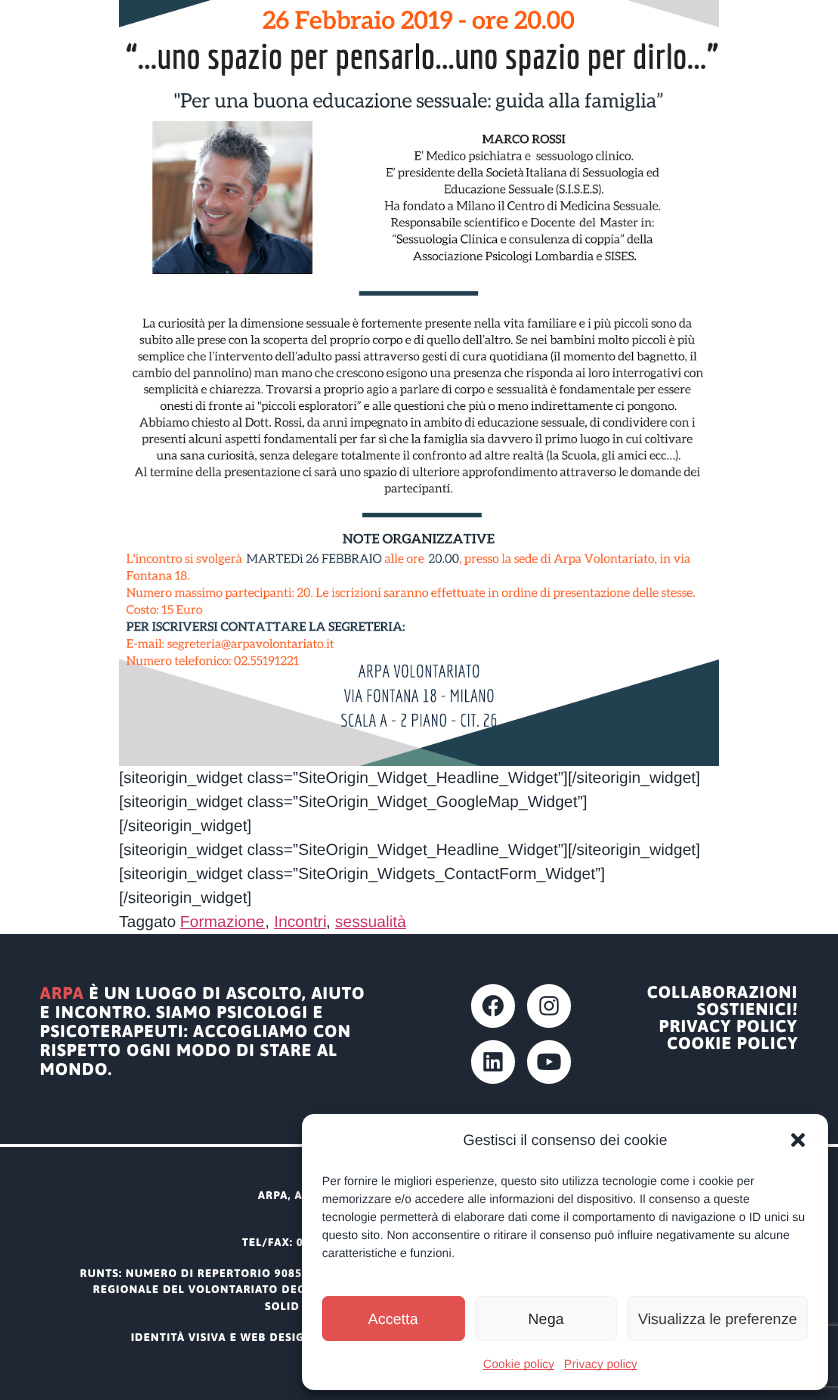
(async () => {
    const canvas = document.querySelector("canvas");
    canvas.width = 838;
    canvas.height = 1400;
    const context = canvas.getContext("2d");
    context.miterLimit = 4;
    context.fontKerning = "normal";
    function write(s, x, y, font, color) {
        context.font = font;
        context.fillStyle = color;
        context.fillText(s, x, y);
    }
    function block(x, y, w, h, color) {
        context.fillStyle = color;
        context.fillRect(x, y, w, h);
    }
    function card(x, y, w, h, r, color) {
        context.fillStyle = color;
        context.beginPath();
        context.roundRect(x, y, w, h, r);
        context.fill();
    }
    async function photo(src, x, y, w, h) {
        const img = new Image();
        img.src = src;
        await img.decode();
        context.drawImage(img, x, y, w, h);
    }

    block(0, 0, 838, 1400, "rgb(255, 255, 255)");
    await photo("media/1.png", 119, 0, 600, 766);
    write("[siteorigin_widget class=”SiteOrigin_Widget_Headline_Widget”][/siteorigin_widget]", 119, 783, "16px Liberation Sans", "rgb(31, 39, 52)");
    write("[siteorigin_widget class=”SiteOrigin_Widget_GoogleMap_Widget”]", 119, 807, "16px Liberation Sans", "rgb(31, 39, 52)");
    write("[/siteorigin_widget]", 119, 831, "16px Liberation Sans", "rgb(31, 39, 52)");
    write("[siteorigin_widget class=”SiteOrigin_Widget_Headline_Widget”][/siteorigin_widget]", 119, 855, "16px Liberation Sans", "rgb(31, 39, 52)");
    write("[siteorigin_widget class=”SiteOrigin_Widgets_ContactForm_Widget”]", 119, 879, "16px Liberation Sans", "rgb(31, 39, 52)");
    write("[/siteorigin_widget]", 119, 903, "16px Liberation Sans", "rgb(31, 39, 52)");
    write("Taggato", 119, 927, "16px Liberation Sans", "rgb(31, 39, 52)");
    write("Formazione", 180, 927, "16px Liberation Sans", "rgb(204, 51, 102)");
    write(",", 265, 927, "16px Liberation Sans", "rgb(31, 39, 52)");
    block(180, 928, 85, 1, "rgb(204, 51, 102)");
    write("Incontri", 274, 927, "16px Liberation Sans", "rgb(204, 51, 102)");
    write(",", 326, 927, "16px Liberation Sans", "rgb(31, 39, 52)");
    block(274, 928, 52, 1, "rgb(204, 51, 102)");
    block(335, 928, 71, 1, "rgb(204, 51, 102)");
    write("sessualità", 335, 927, "16px Liberation Sans", "rgb(204, 51, 102)");
    block(0, 934, 838, 210, "rgb(31, 39, 52)");
    context.letterSpacing = "1px";
    write("ARPA", 40, 999, "800 17px Asap", "rgb(225, 81, 84)");
    write("È UN LUOGO DI ASCOLTO, AIUTO", 89, 999, "800 17px Asap", "rgb(255, 255, 255)");
    write("E INCONTRO. SIAMO PSICOLOGI E", 40, 1018, "800 17px Asap", "rgb(255, 255, 255)");
    write("PSICOTERAPEUTI: ACCOGLIAMO CON", 40, 1037, "800 17px Asap", "rgb(255, 255, 255)");
    write("RISPETTO OGNI MODO DI STARE AL", 40, 1056, "800 17px Asap", "rgb(255, 255, 255)");
    write("MONDO.", 40, 1075, "800 17px Asap", "rgb(255, 255, 255)");
    context.beginPath();
    context.arc(493, 1006, 22, 0, Math.PI * 2);
    context.fill();
    await photo("media/2.png", 482, 995, 22, 22);
    context.beginPath();
    context.arc(549, 1006, 22, 0, Math.PI * 2);
    context.fill();
    await photo("media/3.png", 539, 996, 20, 20);
    context.beginPath();
    context.arc(493, 1062, 22, 0, Math.PI * 2);
    context.fill();
    await photo("media/4.png", 483, 1052, 20, 20);
    context.beginPath();
    context.arc(549, 1062, 22, 0, Math.PI * 2);
    context.fill();
    await photo("media/5.png", 537, 1053, 24, 17);
    write("COLLABORAZIONI", 647, 998, "800 17px Asap", "rgb(255, 255, 255)");
    write("SOSTIENICI!", 697, 1015, "800 17px Asap", "rgb(255, 255, 255)");
    write("PRIVACY POLICY", 659, 1032, "800 17px Asap", "rgb(255, 255, 255)");
    write("COOKIE POLICY", 667, 1049, "800 17px Asap", "rgb(255, 255, 255)");
    block(0, 1147, 838, 253, "rgb(31, 39, 52)");
    write("ARPA, A", 258, 1199, "800 11px Asap", "rgb(255, 255, 255)");
    write("TEL/FAX: 0", 242, 1246, "800 11px Asap", "rgb(255, 255, 255)");
    write("RUNTS: NUMERO DI REPERTORIO 9085", 80, 1277, "800 11px Asap", "rgb(255, 255, 255)");
    write("REGIONALE DEL VOLONTARIATO DEC", 93, 1293, "800 11px Asap", "rgb(255, 255, 255)");
    write("SOLID", 265, 1310, "800 11px Asap", "rgb(255, 255, 255)");
    write("IDENTITÀ VISIVA E WEB DESIG", 131, 1341, "800 11px Asap", "rgb(255, 255, 255)");
    context.fillStyle = "rgba(0, 0, 0, 0.23)";
    context.filter = "blur(3px)";
    context.beginPath();
    context.roundRect(302, 1120, 526, 276, 12);
    context.fill();
    context.filter = "none";
    context.fillStyle = "rgba(0, 0, 0, 0.19)";
    context.filter = "blur(10px)";
    context.beginPath();
    context.roundRect(302, 1124, 526, 276, 12);
    context.fill();
    context.filter = "none";
    context.save();
    context.beginPath();
    context.moveTo(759, 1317);
    context.lineTo(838, 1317);
    context.lineTo(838, 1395);
    context.lineTo(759, 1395);
    context.closePath();
    context.moveTo(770, 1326);
    context.lineTo(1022, 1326);
    context.bezierCurveTo(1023, 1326, 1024, 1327, 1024, 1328);
    context.lineTo(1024, 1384);
    context.bezierCurveTo(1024, 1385, 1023, 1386, 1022, 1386);
    context.lineTo(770, 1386);
    context.bezierCurveTo(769, 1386, 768, 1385, 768, 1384);
    context.lineTo(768, 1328);
    context.bezierCurveTo(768, 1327, 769, 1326, 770, 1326);
    context.closePath();
    context.clip("evenodd");
    context.fillStyle = "rgb(128, 128, 128)";
    context.filter = "blur(2.5px)";
    context.beginPath();
    context.roundRect(768, 1326, 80, 60, 2);
    context.fill();
    context.filter = "none";
    context.restore();
    card(302, 1114, 526, 276, 12, "rgb(255, 255, 255)");
    context.letterSpacing = "0px";
    write("Gestisci il consenso dei cookie", 463, 1145, "15px Liberation Sans", "rgb(31, 39, 52)");
    await photo("media/6.png", 791, 1133, 14, 14);
    write("Per fornire le migliori esperienze, questo sito utilizza tecnologie come i cookie per", 322, 1185, "12px Liberation Sans", "rgb(31, 39, 52)");
    write("memorizzare e/o accedere alle informazioni del dispositivo. Il consenso a queste", 322, 1203, "12px Liberation Sans", "rgb(31, 39, 52)");
    write("tecnologie permetterà di elaborare dati come il comportamento di navigazione o ID unici su", 322, 1221, "12px Liberation Sans", "rgb(31, 39, 52)");
    write("questo sito. Non acconsentire o ritirare il consenso può influire negativamente su alcune", 322, 1239, "12px Liberation Sans", "rgb(31, 39, 52)");
    write("caratteristiche e funzioni.", 322, 1257, "12px Liberation Sans", "rgb(31, 39, 52)");
    context.fillStyle = "rgb(225, 81, 79)";
    context.beginPath();
    context.roundRect(322.5, 1296.5, 142, 44, 5.5);
    context.fill();
    context.strokeStyle = "rgb(225, 81, 79)";
    context.stroke();
    write("Accetta", 368, 1324, "15px Liberation Sans", "rgb(255, 255, 255)");
    context.fillStyle = "rgb(249, 249, 249)";
    context.beginPath();
    context.roundRect(475.5, 1296.5, 141, 44, 5.5);
    context.fill();
    context.strokeStyle = "rgb(242, 242, 242)";
    context.stroke();
    write("Nega", 528, 1324, "15px Liberation Sans", "rgb(34, 34, 34)");
    context.fillStyle = "rgb(249, 249, 249)";
    context.beginPath();
    context.roundRect(627.5, 1296.5, 180, 44, 5.5);
    context.fill();
    context.stroke();
    write("Visualizza le preferenze", 638, 1324, "15px Liberation Sans", "rgb(51, 51, 51)");
    block(483, 1369, 71, 1, "rgb(225, 81, 79)");
    write("Cookie policy", 483, 1368, "12px Liberation Sans", "rgb(225, 81, 84)");
    block(564, 1369, 73, 1, "rgb(225, 81, 79)");
    write("Privacy policy", 564, 1368, "12px Liberation Sans", "rgb(225, 81, 84)");
})();
